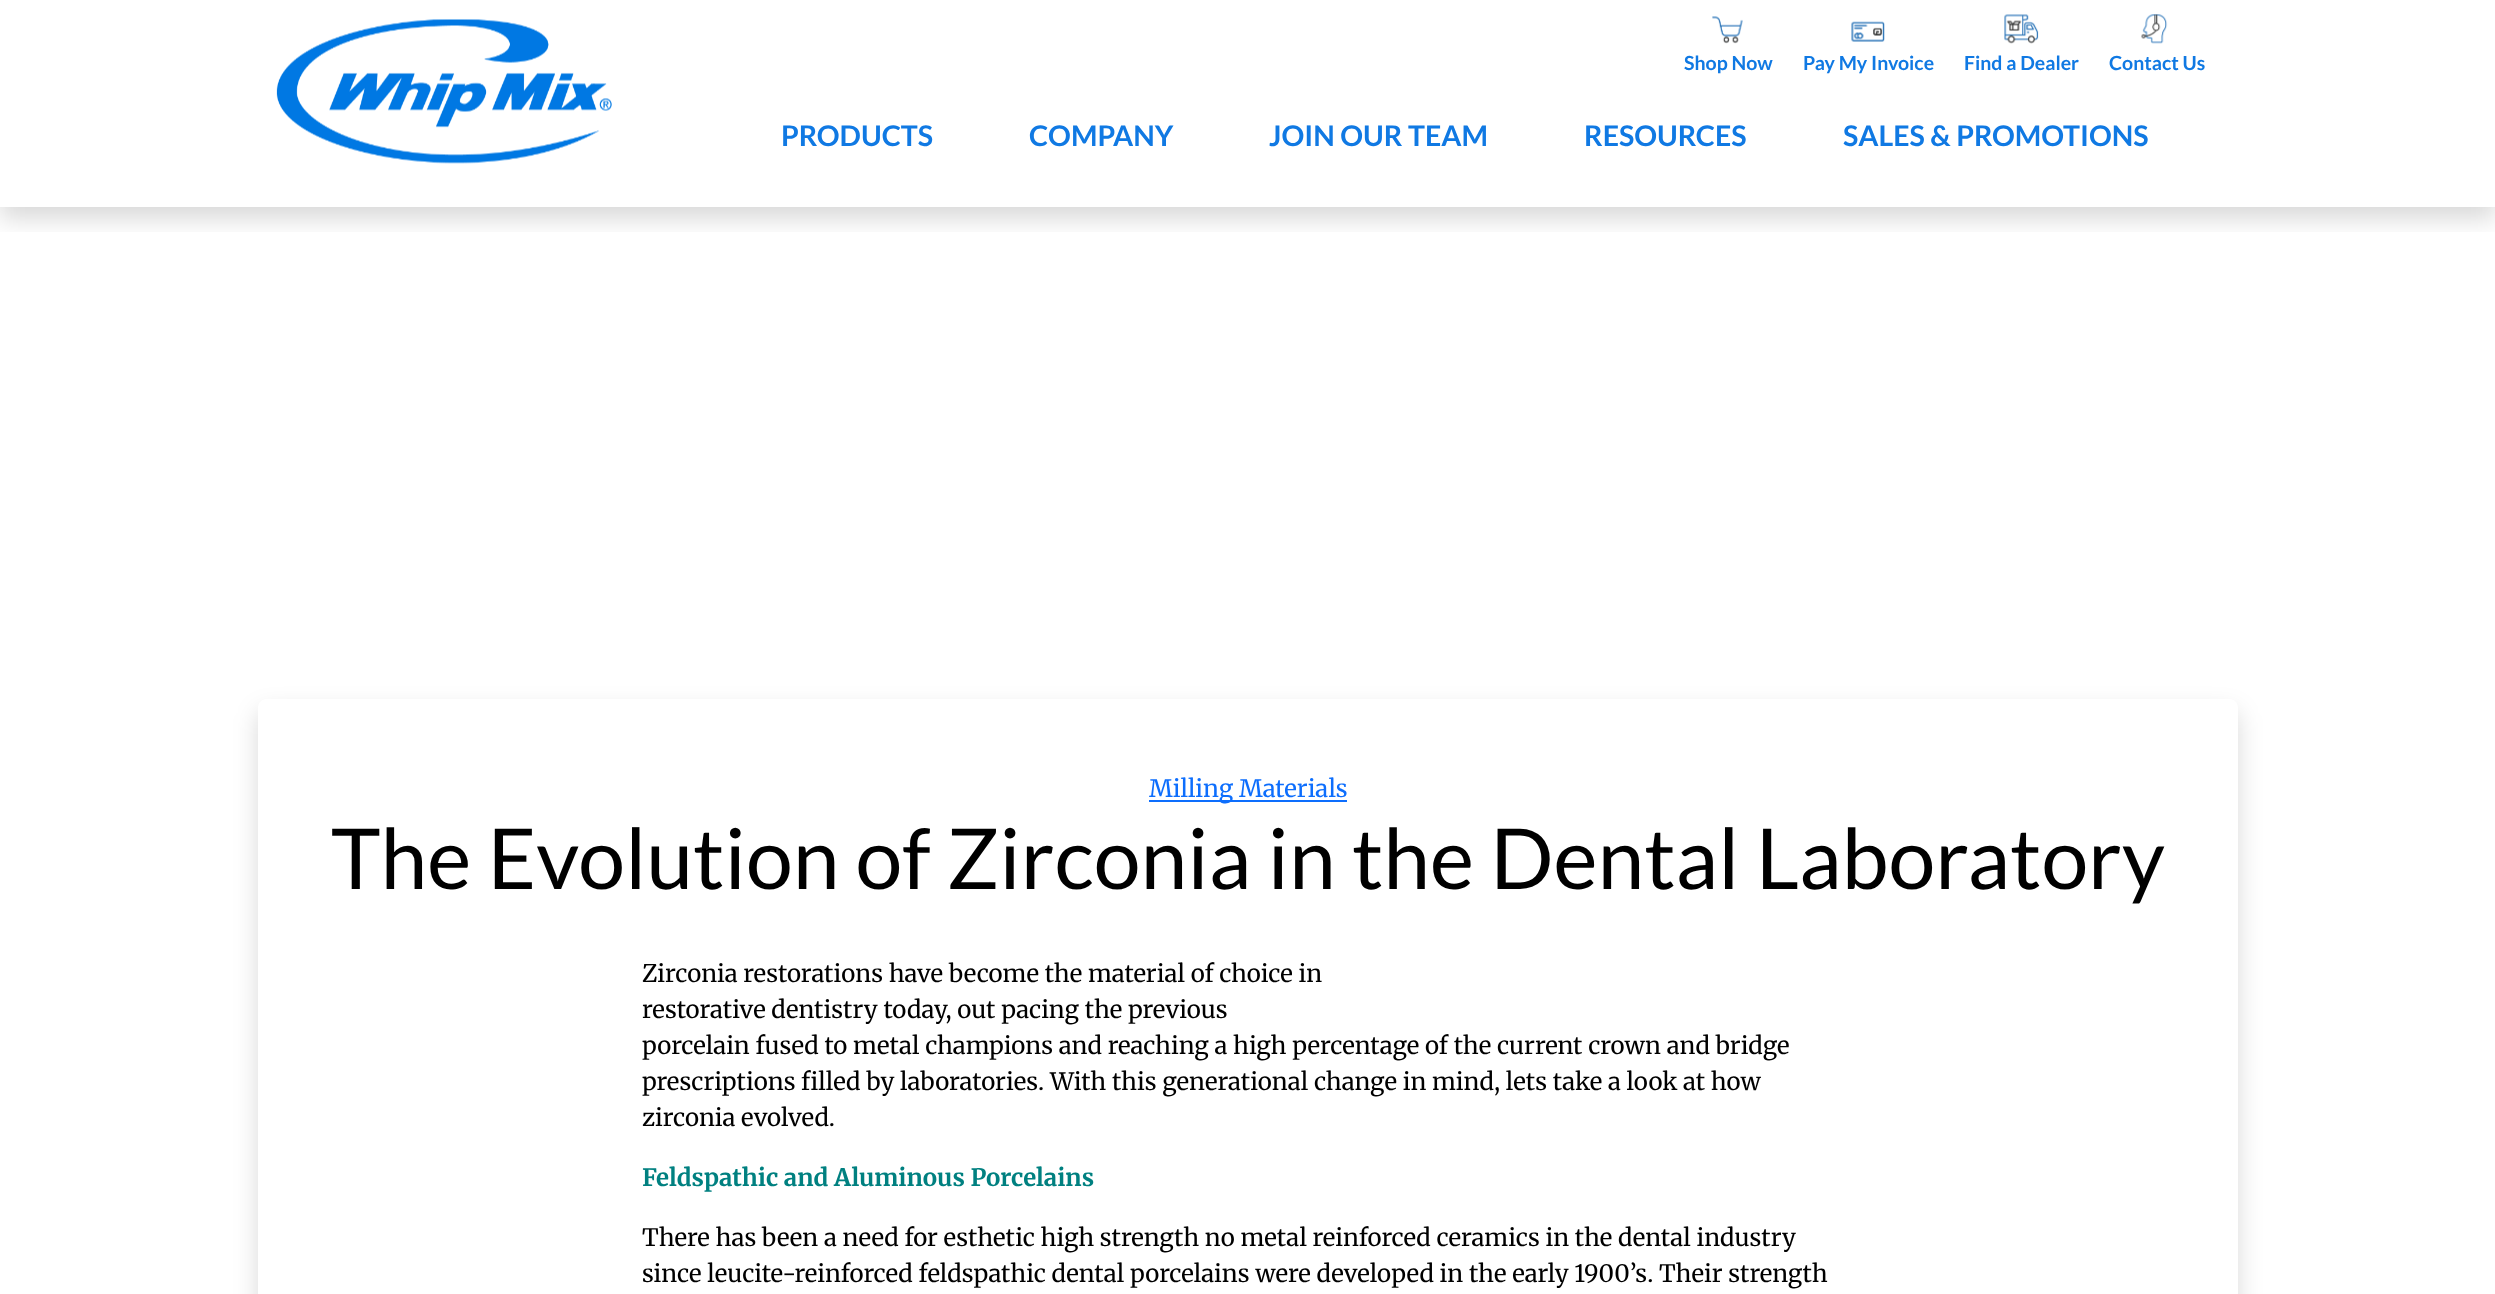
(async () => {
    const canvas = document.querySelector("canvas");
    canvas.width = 2495;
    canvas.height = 1294;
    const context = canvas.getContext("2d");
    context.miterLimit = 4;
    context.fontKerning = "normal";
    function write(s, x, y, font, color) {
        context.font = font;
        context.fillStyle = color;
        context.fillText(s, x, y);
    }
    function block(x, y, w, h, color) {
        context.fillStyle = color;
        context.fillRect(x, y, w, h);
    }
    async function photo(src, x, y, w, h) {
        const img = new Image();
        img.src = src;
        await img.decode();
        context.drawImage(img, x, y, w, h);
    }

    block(0, 0, 2495, 1294, "rgb(255, 255, 255)");
    context.save();
    context.beginPath();
    context.rect(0, 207, 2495, 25);
    context.clip();
    context.fillStyle = "rgba(0, 0, 0, 0.15)";
    context.filter = "blur(12px)";
    context.beginPath();
    context.rect(0, 12, 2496, 207);
    context.fill();
    context.filter = "none";
    context.restore();
    await photo("media/1.png", 276, 19, 336, 145);
    await photo("media/2.png", 1712, 16, 31, 28);
    write("Shop Now", 1684, 70, "bold 19.5px Lato", "rgb(16, 121, 227)");
    await photo("media/3.png", 1851, 21, 34, 21);
    write("Pay My Invoice", 1803, 70, "bold 19.5px Lato", "rgb(16, 121, 227)");
    await photo("media/4.png", 2004, 14, 35, 30);
    write("Find a Dealer", 1964, 70, "bold 19.5px Lato", "rgb(16, 121, 227)");
    await photo("media/5.png", 2141, 14, 27, 30);
    write("Contact Us", 2109, 70, "bold 19.5px Lato", "rgb(16, 121, 227)");
    write("PRODUCTS", 781, 146, "bold 28.5px Lato", "rgb(16, 121, 227)");
    write("COMPANY", 1029, 146, "bold 28.5px Lato", "rgb(16, 121, 227)");
    write("JOIN OUR TEAM", 1269, 146, "bold 28.5px Lato", "rgb(16, 121, 227)");
    write("RESOURCES", 1584, 146, "bold 28.5px Lato", "rgb(16, 121, 227)");
    write("SALES & PROMOTIONS", 1843, 146, "bold 28.5px Lato", "rgb(16, 121, 227)");
    context.save();
    context.beginPath();
    context.moveTo(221, 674);
    context.lineTo(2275, 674);
    context.lineTo(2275, 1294);
    context.lineTo(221, 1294);
    context.closePath();
    context.moveTo(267, 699);
    context.lineTo(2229, 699);
    context.bezierCurveTo(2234, 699, 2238, 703, 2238, 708);
    context.lineTo(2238, 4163);
    context.bezierCurveTo(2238, 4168, 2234, 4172, 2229, 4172);
    context.lineTo(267, 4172);
    context.bezierCurveTo(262, 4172, 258, 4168, 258, 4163);
    context.lineTo(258, 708);
    context.bezierCurveTo(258, 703, 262, 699, 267, 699);
    context.closePath();
    context.clip("evenodd");
    context.fillStyle = "rgba(0, 0, 0, 0.15)";
    context.filter = "blur(12px)";
    context.beginPath();
    context.roundRect(258, 711, 1980, 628, 9);
    context.fill();
    context.filter = "none";
    context.restore();
    block(1149, 800, 198, 2, "rgb(13, 110, 253)");
    write("Milling Materials", 1149, 797, "24px Merriweather", "rgb(13, 110, 253)");
    write("The Evolution of Zirconia in the Dental Laboratory", 331, 889, "84px Lato", "rgb(0, 0, 0)");
    write("Zirconia restorations have become the material of choice in", 642, 982, "24px Merriweather", "rgb(0, 0, 0)");
    write("restorative dentistry today, out pacing the previous", 642, 1018, "24px Merriweather", "rgb(0, 0, 0)");
    write("porcelain fused to metal champions and reaching a high percentage of the current crown and bridge", 642, 1054, "24px Merriweather", "rgb(0, 0, 0)");
    write("prescriptions filled by laboratories. With this generational change in mind, lets take a look at how", 642, 1090, "24px Merriweather", "rgb(0, 0, 0)");
    write("zirconia evolved.", 642, 1126, "24px Merriweather", "rgb(0, 0, 0)");
    write("Feldspathic and Aluminous Porcelains", 642, 1186, "bold 24px Merriweather", "rgb(0, 128, 128)");
    write("There has been a need for esthetic high strength no metal reinforced ceramics in the dental industry", 642, 1246, "24px Merriweather", "rgb(0, 0, 0)");
    write("since leucite-reinforced feldspathic dental porcelains were developed in the early 1900’s. Their strength", 642, 1282, "24px Merriweather", "rgb(0, 0, 0)");
})();
